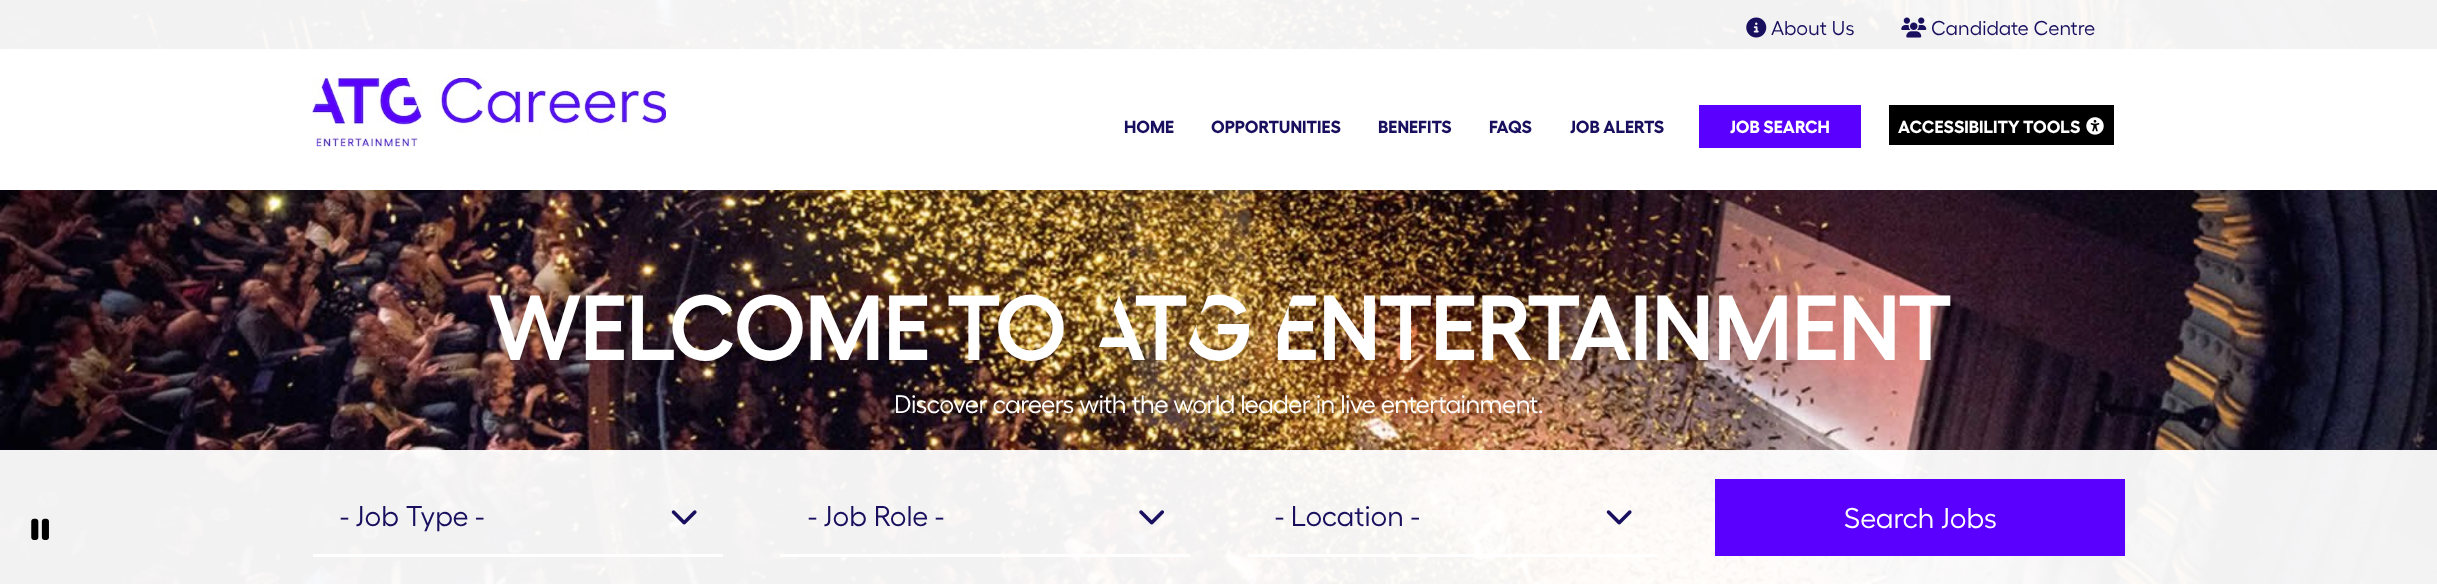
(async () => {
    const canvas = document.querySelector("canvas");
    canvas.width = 2437;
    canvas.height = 584;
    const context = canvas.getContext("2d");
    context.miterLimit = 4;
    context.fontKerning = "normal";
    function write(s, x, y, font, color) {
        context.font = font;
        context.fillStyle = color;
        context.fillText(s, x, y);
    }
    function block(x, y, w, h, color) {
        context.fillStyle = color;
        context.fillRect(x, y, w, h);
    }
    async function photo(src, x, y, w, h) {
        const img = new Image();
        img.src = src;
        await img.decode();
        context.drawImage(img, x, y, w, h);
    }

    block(0, 0, 2437, 584, "rgb(255, 255, 255)");
    await photo("media/5.png", 0, 0, 2437, 584);
    block(0, 0, 2437, 49, "rgba(255, 255, 255, 0.95)");
    await photo("media/1.png", 1746, 17, 21, 21);
    write("About Us", 1771, 35, "20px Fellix", "rgb(24, 15, 94)");
    await photo("media/2.png", 1901, 17, 26, 21);
    write("Candidate Centre", 1931, 35, "20px Fellix", "rgb(24, 15, 94)");
    block(0, 49, 2437, 141, "rgb(255, 255, 255)");
    await photo("media/3.png", 312, 78, 354, 69);
    write("HOME", 1124, 133, "bold 17.5px Fellix", "rgb(24, 15, 94)");
    write("OPPORTUNITIES", 1211, 133, "bold 17.5px Fellix", "rgb(24, 15, 94)");
    write("BENEFITS", 1378, 133, "bold 17.5px Fellix", "rgb(24, 15, 94)");
    write("FAQS", 1489, 133, "bold 17.5px Fellix", "rgb(24, 15, 94)");
    write("JOB ALERTS", 1570, 133, "bold 17.5px Fellix", "rgb(24, 15, 94)");
    block(1699, 105, 162, 43, "rgb(90, 0, 255)");
    write("JOB SEARCH", 1730, 133, "bold 17.5px Fellix", "rgb(255, 255, 255)");
    block(1889, 105, 225, 40, "rgb(0, 0, 0)");
    write("ACCESSIBILITY TOOLS", 1898, 133, "bold 17.5px Fellix", "rgb(255, 255, 255)");
    await photo("media/4.png", 2086, 117, 18, 18);
    block(0, 450, 2437, 134, "rgba(255, 255, 255, 0.95)");
    await photo("media/6.png", 31, 518, 18, 22);
    context.letterSpacing = "-2.3px";
    write("Welcome to ATG Entertainment", 488, 360, "600 92.1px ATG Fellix", "rgb(255, 255, 255)");
    context.letterSpacing = "-0.65px";
    write("Discover careers with the world leader in live entertainment.", 894, 413, "25.5px Fellix", "rgb(255, 255, 255)");
    block(313, 554, 410, 3, "rgb(255, 255, 255)");
    context.letterSpacing = "0px";
    write("- Job Type -", 340, 526, "28.5px Fellix", "rgb(24, 15, 94)");
    await photo("media/7.png", 671, 510, 26, 15);
    block(780, 554, 410, 3, "rgb(255, 255, 255)");
    write("- Job Role -", 808, 526, "28.5px Fellix", "rgb(24, 15, 94)");
    await photo("media/8.png", 1139, 510, 25, 15);
    block(1248, 554, 410, 3, "rgb(255, 255, 255)");
    write("- Location -", 1275, 526, "28.5px Fellix", "rgb(24, 15, 94)");
    await photo("media/9.png", 1606, 510, 26, 15);
    block(1715, 479, 410, 77, "rgb(90, 0, 255)");
    write("Search Jobs", 1844, 528, "28.5px Fellix", "rgb(255, 255, 255)");
})();
